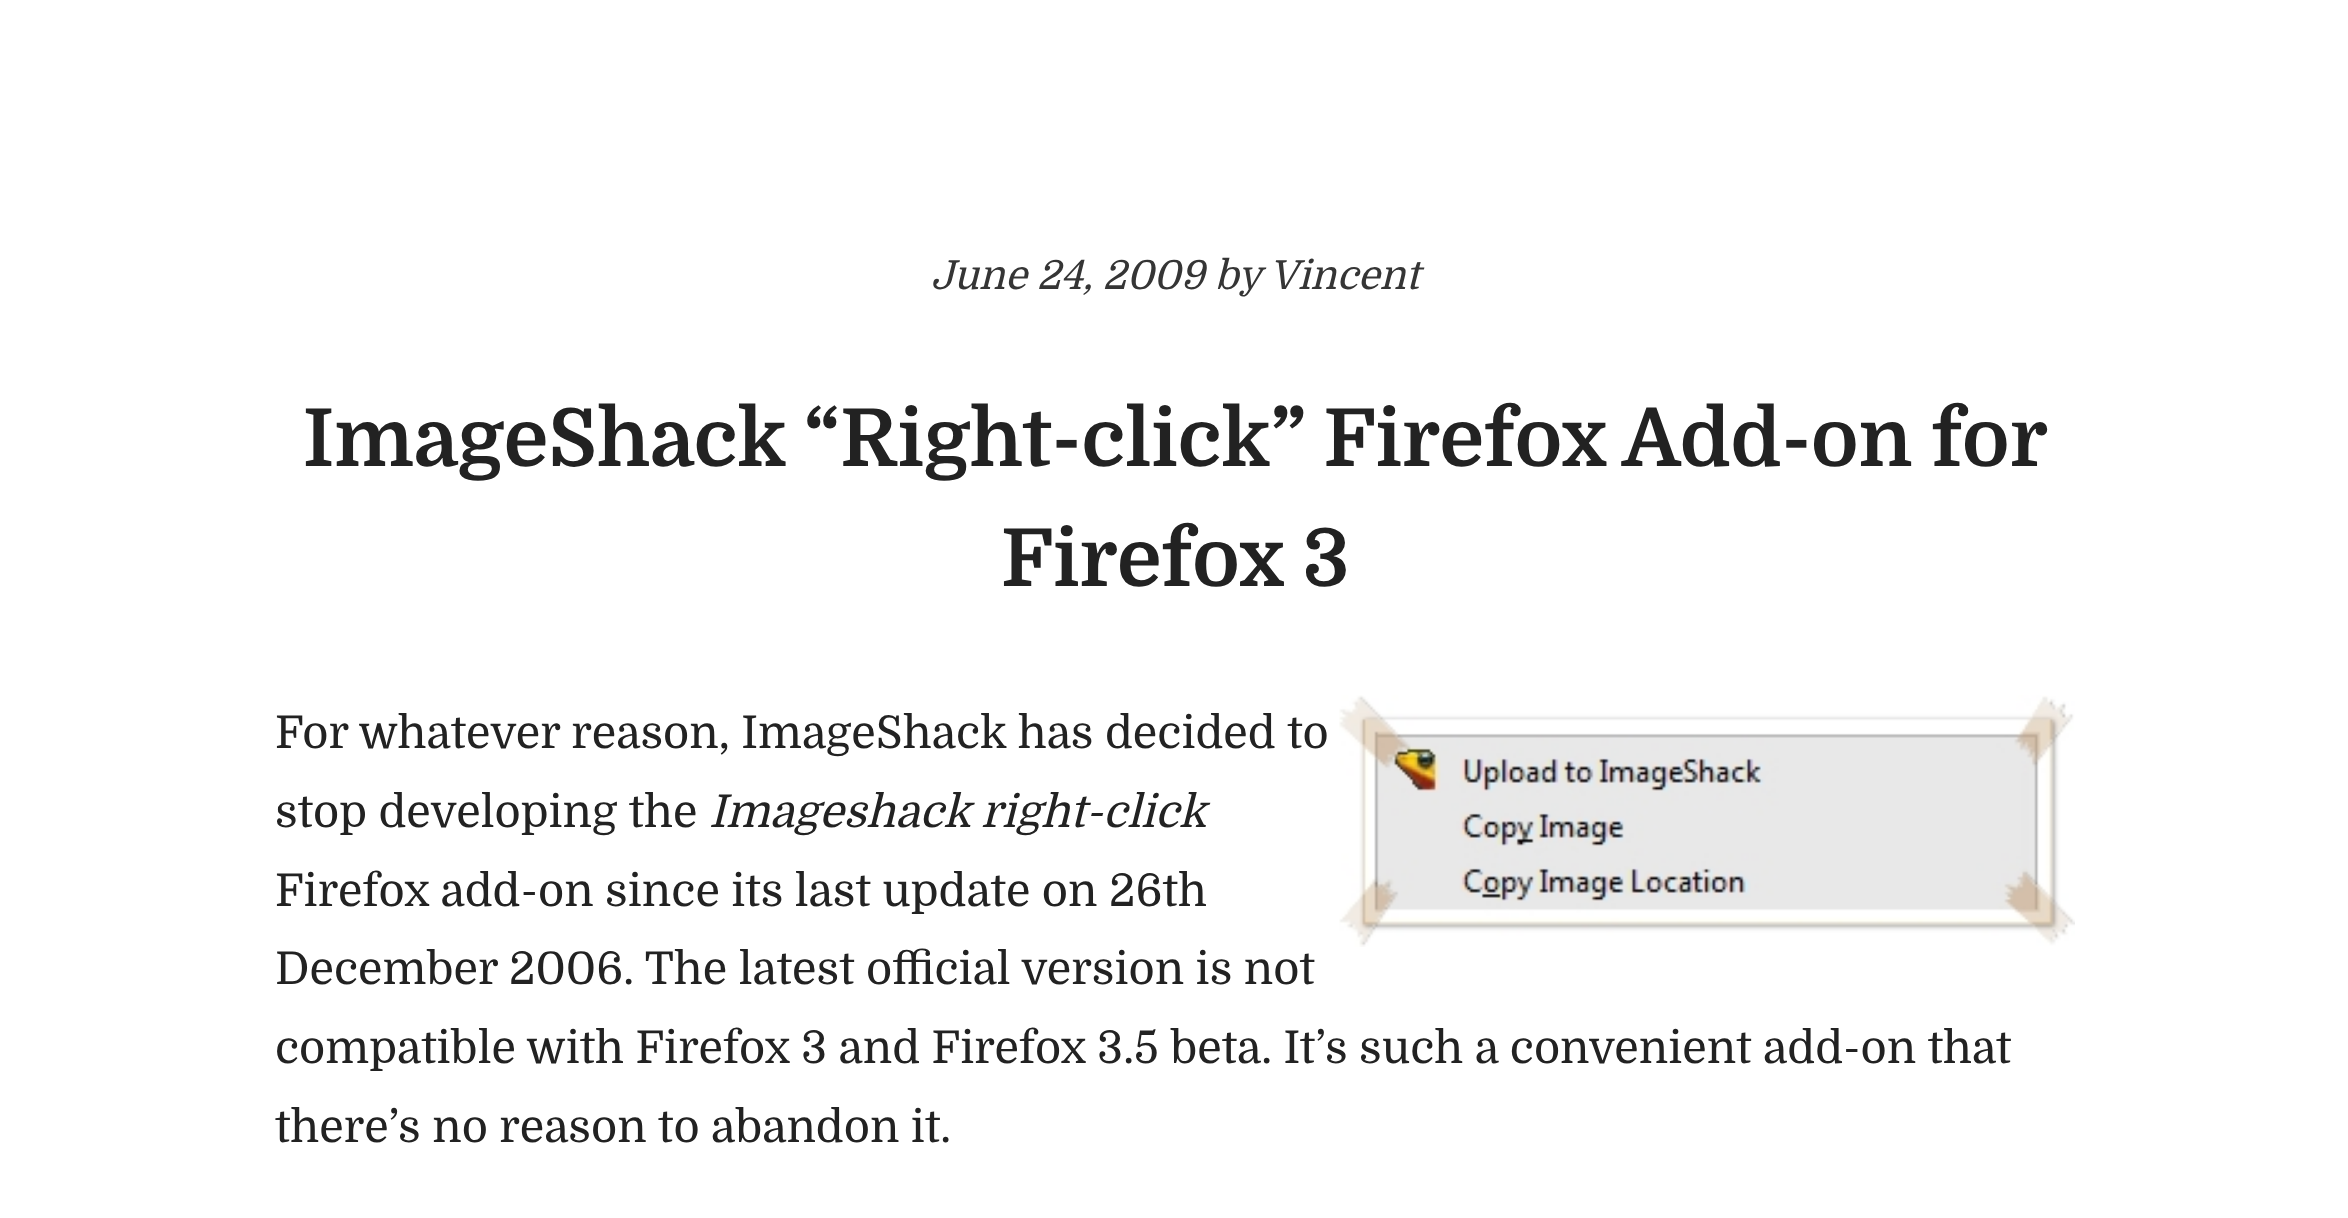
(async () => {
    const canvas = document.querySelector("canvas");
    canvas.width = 2348;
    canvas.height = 1218;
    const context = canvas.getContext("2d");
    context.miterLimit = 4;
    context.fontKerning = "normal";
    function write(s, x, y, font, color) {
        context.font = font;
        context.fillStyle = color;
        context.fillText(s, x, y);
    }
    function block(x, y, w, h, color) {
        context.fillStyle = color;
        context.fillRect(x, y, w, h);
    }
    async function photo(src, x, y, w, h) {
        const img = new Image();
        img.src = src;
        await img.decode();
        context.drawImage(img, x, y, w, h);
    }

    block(0, 0, 2348, 1218, "rgb(255, 255, 255)");
    write("June 24, 2009 by Vincent", 931, 289, "italic 40px Domine", "rgb(53, 53, 53)");
    write("ImageShack “Right-click” Firefox Add-on for", 303, 466, "bold 80px Domine", "rgb(34, 34, 34)");
    write("Firefox 3", 1001, 586, "bold 80px Domine", "rgb(34, 34, 34)");
    write("For whatever reason, ImageShack has decided to", 275, 748, "45px Domine", "rgb(34, 34, 34)");
    await photo("media/1.png", 1339, 695, 736, 252);
    write("stop developing the", 275, 827, "45px Domine", "rgb(34, 34, 34)");
    write("Imageshack right-click", 709, 827, "italic 45px Domine", "rgb(34, 34, 34)");
    write("Firefox add-on since its last update on 26th", 275, 906, "45px Domine", "rgb(34, 34, 34)");
    write("December 2006. The latest official version is not", 275, 984, "45px Domine", "rgb(34, 34, 34)");
    write("compatible with Firefox 3 and Firefox 3.5 beta. It’s such a convenient add-on that", 275, 1063, "45px Domine", "rgb(34, 34, 34)");
    write("there’s no reason to abandon it.", 275, 1142, "45px Domine", "rgb(34, 34, 34)");
})();
